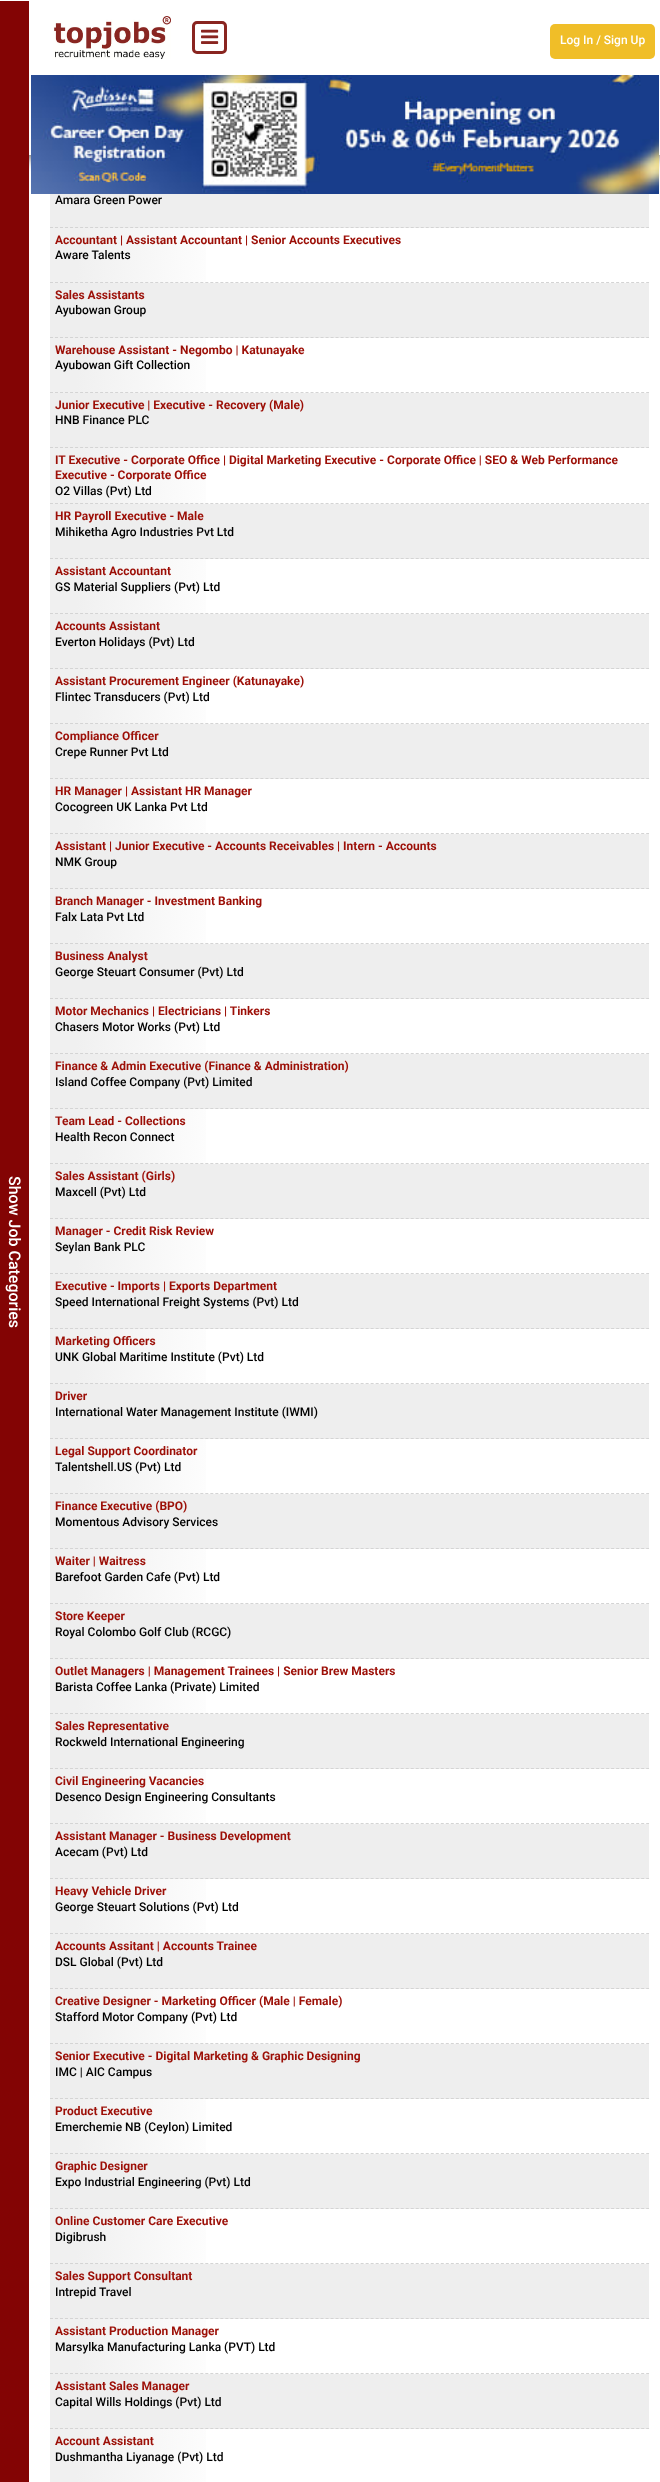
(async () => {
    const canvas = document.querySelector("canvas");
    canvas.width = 660;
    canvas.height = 2482;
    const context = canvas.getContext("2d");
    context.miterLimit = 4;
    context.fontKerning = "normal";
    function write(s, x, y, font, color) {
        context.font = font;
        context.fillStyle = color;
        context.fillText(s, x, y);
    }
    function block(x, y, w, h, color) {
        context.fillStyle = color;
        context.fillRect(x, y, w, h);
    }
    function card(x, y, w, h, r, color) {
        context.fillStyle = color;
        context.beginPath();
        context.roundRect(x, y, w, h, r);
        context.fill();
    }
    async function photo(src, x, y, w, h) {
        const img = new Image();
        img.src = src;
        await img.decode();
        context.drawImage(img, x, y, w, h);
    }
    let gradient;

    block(0, 0, 660, 2482, "rgb(255, 255, 255)");
    context.fillStyle = "rgba(0, 0, 0, 0.75)";
    context.filter = "blur(7.5px)";
    context.beginPath();
    context.rect(-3, -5, 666, 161);
    context.fill();
    context.filter = "none";
    block(0, 0, 660, 155, "rgb(255, 255, 255)");
    await photo("media/1.png", 53, 16, 118, 43);
    context.beginPath();
    context.roundRect(193.5, 22.5, 32, 30, 3.5);
    context.strokeStyle = "rgb(137, 37, 32)";
    context.lineWidth = 3;
    context.stroke();
    await photo("media/2.png", 201, 29, 18, 15);
    card(550, 24, 105, 35, 5, "rgb(240, 190, 40)");
    write("Log In / Sign Up", 560, 44, "500 12px Roboto", "rgb(255, 255, 255)");
    await photo("media/3.png", 31, 75, 628, 119);
    block(0, 1, 29, 2481, "rgb(131, 4, 4)");
    context.font = "500 16px Roboto";
    context.fillStyle = "rgb(255, 255, 255)";
    context.save();
    context.translate(9, 1176);
    context.rotate(90 * Math.PI / 180);
    context.fillText("Show Job Categories", 0, 0);
    context.restore();
    block(50, 194, 599, 34, "rgb(238, 238, 238)");
    context.beginPath();
    context.moveTo(50, 227.5);
    context.lineTo(649, 227.5);
    context.strokeStyle = "rgb(212, 212, 212)";
    context.lineWidth = 1;
    context.setLineDash([3, 2.01]);
    context.stroke();
    write("Amara Green Power", 55, 204, "500 12px Roboto", "rgb(0, 0, 0)");
    gradient = context.createLinearGradient(649, 281, 50, 229);
    gradient.addColorStop(0.7, "rgb(255, 255, 255)");
    gradient.addColorStop(0.95, "rgb(240, 240, 240)");
    context.fillStyle = gradient;
    context.fillRect(50, 228, 156, 54);
    gradient = context.createLinearGradient(649, 335, 50, 283);
    gradient.addColorStop(0.7, "rgb(255, 255, 255)");
    gradient.addColorStop(0.95, "rgb(240, 240, 240)");
    context.fillStyle = gradient;
    context.fillRect(50, 282, 156, 1);
    context.beginPath();
    context.moveTo(50, 282.5);
    context.lineTo(649, 282.5);
    context.stroke();
    write("Accountant | Assistant Accountant | Senior Accounts Executives", 55, 244, "bold 12px Roboto", "rgb(156, 15, 7)");
    write("Aware Talents", 55, 259, "500 12px Roboto", "rgb(0, 0, 0)");
    block(50, 283, 599, 55, "rgb(238, 238, 238)");
    context.beginPath();
    context.moveTo(50, 337.5);
    context.lineTo(649, 337.5);
    context.stroke();
    write("Sales Assistants", 55, 299, "bold 12px Roboto", "rgb(156, 15, 7)");
    write("Ayubowan Group", 55, 314, "500 12px Roboto", "rgb(0, 0, 0)");
    gradient = context.createLinearGradient(649, 391, 50, 339);
    gradient.addColorStop(0.7, "rgb(255, 255, 255)");
    gradient.addColorStop(0.95, "rgb(240, 240, 240)");
    context.fillStyle = gradient;
    context.fillRect(50, 338, 156, 54);
    gradient = context.createLinearGradient(649, 445, 50, 393);
    gradient.addColorStop(0.7, "rgb(255, 255, 255)");
    gradient.addColorStop(0.95, "rgb(240, 240, 240)");
    context.fillStyle = gradient;
    context.fillRect(50, 392, 156, 1);
    context.beginPath();
    context.moveTo(50, 392.5);
    context.lineTo(649, 392.5);
    context.stroke();
    write("Warehouse Assistant - Negombo | Katunayake", 55, 354, "bold 12px Roboto", "rgb(156, 15, 7)");
    write("Ayubowan Gift Collection", 55, 369, "500 12px Roboto", "rgb(0, 0, 0)");
    block(50, 393, 599, 55, "rgb(238, 238, 238)");
    context.beginPath();
    context.moveTo(50, 447.5);
    context.lineTo(649, 447.5);
    context.stroke();
    write("Junior Executive | Executive - Recovery (Male)", 55, 409, "bold 12px Roboto", "rgb(156, 15, 7)");
    write("HNB Finance PLC", 55, 424, "500 12px Roboto", "rgb(0, 0, 0)");
    gradient = context.createLinearGradient(649, 502, 50, 449);
    gradient.addColorStop(0.7, "rgb(255, 255, 255)");
    gradient.addColorStop(0.95, "rgb(240, 240, 240)");
    context.fillStyle = gradient;
    context.fillRect(50, 448, 156, 55);
    gradient = context.createLinearGradient(649, 557, 50, 504);
    gradient.addColorStop(0.7, "rgb(255, 255, 255)");
    gradient.addColorStop(0.95, "rgb(240, 240, 240)");
    context.fillStyle = gradient;
    context.fillRect(50, 503, 156, 1);
    context.beginPath();
    context.moveTo(50, 503.5);
    context.lineTo(649, 503.5);
    context.stroke();
    write("IT Executive - Corporate Office | Digital Marketing Executive - Corporate Office | SEO & Web Performance", 55, 464, "bold 12px Roboto", "rgb(156, 15, 7)");
    write("Executive - Corporate Office", 55, 479, "bold 12px Roboto", "rgb(156, 15, 7)");
    write("O2 Villas (Pvt) Ltd", 55, 495, "500 12px Roboto", "rgb(0, 0, 0)");
    block(50, 504, 599, 55, "rgb(238, 238, 238)");
    context.beginPath();
    context.moveTo(50, 558.5);
    context.lineTo(649, 558.5);
    context.stroke();
    write("HR Payroll Executive - Male", 55, 520, "bold 12px Roboto", "rgb(156, 15, 7)");
    write("Mihiketha Agro Industries Pvt Ltd", 55, 536, "500 12px Roboto", "rgb(0, 0, 0)");
    gradient = context.createLinearGradient(649, 612, 50, 560);
    gradient.addColorStop(0.7, "rgb(255, 255, 255)");
    gradient.addColorStop(0.95, "rgb(240, 240, 240)");
    context.fillStyle = gradient;
    context.fillRect(50, 559, 156, 54);
    gradient = context.createLinearGradient(649, 666, 50, 614);
    gradient.addColorStop(0.7, "rgb(255, 255, 255)");
    gradient.addColorStop(0.95, "rgb(240, 240, 240)");
    context.fillStyle = gradient;
    context.fillRect(50, 613, 156, 1);
    context.beginPath();
    context.moveTo(50, 613.5);
    context.lineTo(649, 613.5);
    context.stroke();
    write("Assistant Accountant", 55, 575, "bold 12px Roboto", "rgb(156, 15, 7)");
    write("GS Material Suppliers (Pvt) Ltd", 55, 591, "500 12px Roboto", "rgb(0, 0, 0)");
    block(50, 614, 599, 55, "rgb(238, 238, 238)");
    context.beginPath();
    context.moveTo(50, 668.5);
    context.lineTo(649, 668.5);
    context.stroke();
    write("Accounts Assistant", 55, 630, "bold 12px Roboto", "rgb(156, 15, 7)");
    write("Everton Holidays (Pvt) Ltd", 55, 646, "500 12px Roboto", "rgb(0, 0, 0)");
    gradient = context.createLinearGradient(649, 722, 50, 670);
    gradient.addColorStop(0.7, "rgb(255, 255, 255)");
    gradient.addColorStop(0.95, "rgb(240, 240, 240)");
    context.fillStyle = gradient;
    context.fillRect(50, 669, 156, 54);
    gradient = context.createLinearGradient(649, 776, 50, 724);
    gradient.addColorStop(0.7, "rgb(255, 255, 255)");
    gradient.addColorStop(0.95, "rgb(240, 240, 240)");
    context.fillStyle = gradient;
    context.fillRect(50, 723, 156, 1);
    context.beginPath();
    context.moveTo(50, 723.5);
    context.lineTo(649, 723.5);
    context.stroke();
    write("Assistant Procurement Engineer (Katunayake)", 55, 685, "bold 12px Roboto", "rgb(156, 15, 7)");
    write("Flintec Transducers (Pvt) Ltd", 55, 701, "500 12px Roboto", "rgb(0, 0, 0)");
    block(50, 724, 599, 55, "rgb(238, 238, 238)");
    context.beginPath();
    context.moveTo(50, 778.5);
    context.lineTo(649, 778.5);
    context.stroke();
    write("Compliance Officer", 55, 740, "bold 12px Roboto", "rgb(156, 15, 7)");
    write("Crepe Runner Pvt Ltd", 55, 756, "500 12px Roboto", "rgb(0, 0, 0)");
    gradient = context.createLinearGradient(649, 832, 50, 780);
    gradient.addColorStop(0.7, "rgb(255, 255, 255)");
    gradient.addColorStop(0.95, "rgb(240, 240, 240)");
    context.fillStyle = gradient;
    context.fillRect(50, 779, 156, 54);
    gradient = context.createLinearGradient(649, 886, 50, 834);
    gradient.addColorStop(0.7, "rgb(255, 255, 255)");
    gradient.addColorStop(0.95, "rgb(240, 240, 240)");
    context.fillStyle = gradient;
    context.fillRect(50, 833, 156, 1);
    context.beginPath();
    context.moveTo(50, 833.5);
    context.lineTo(649, 833.5);
    context.stroke();
    write("HR Manager | Assistant HR Manager", 55, 795, "bold 12px Roboto", "rgb(156, 15, 7)");
    write("Cocogreen UK Lanka Pvt Ltd", 55, 811, "500 12px Roboto", "rgb(0, 0, 0)");
    block(50, 834, 599, 55, "rgb(238, 238, 238)");
    context.beginPath();
    context.moveTo(50, 888.5);
    context.lineTo(649, 888.5);
    context.stroke();
    write("Assistant | Junior Executive - Accounts Receivables | Intern - Accounts", 55, 850, "bold 12px Roboto", "rgb(156, 15, 7)");
    write("NMK Group", 55, 866, "500 12px Roboto", "rgb(0, 0, 0)");
    gradient = context.createLinearGradient(649, 942, 50, 890);
    gradient.addColorStop(0.7, "rgb(255, 255, 255)");
    gradient.addColorStop(0.95, "rgb(240, 240, 240)");
    context.fillStyle = gradient;
    context.fillRect(50, 889, 156, 54);
    gradient = context.createLinearGradient(649, 996, 50, 944);
    gradient.addColorStop(0.7, "rgb(255, 255, 255)");
    gradient.addColorStop(0.95, "rgb(240, 240, 240)");
    context.fillStyle = gradient;
    context.fillRect(50, 943, 156, 1);
    context.beginPath();
    context.moveTo(50, 943.5);
    context.lineTo(649, 943.5);
    context.stroke();
    write("Branch Manager - Investment Banking", 55, 905, "bold 12px Roboto", "rgb(156, 15, 7)");
    write("Falx Lata Pvt Ltd", 55, 921, "500 12px Roboto", "rgb(0, 0, 0)");
    block(50, 944, 599, 55, "rgb(238, 238, 238)");
    context.beginPath();
    context.moveTo(50, 998.5);
    context.lineTo(649, 998.5);
    context.stroke();
    write("Business Analyst", 55, 960, "bold 12px Roboto", "rgb(156, 15, 7)");
    write("George Steuart Consumer (Pvt) Ltd", 55, 976, "500 12px Roboto", "rgb(0, 0, 0)");
    gradient = context.createLinearGradient(649, 1052, 50, 1000);
    gradient.addColorStop(0.7, "rgb(255, 255, 255)");
    gradient.addColorStop(0.95, "rgb(240, 240, 240)");
    context.fillStyle = gradient;
    context.fillRect(50, 999, 156, 54);
    gradient = context.createLinearGradient(649, 1106, 50, 1054);
    gradient.addColorStop(0.7, "rgb(255, 255, 255)");
    gradient.addColorStop(0.95, "rgb(240, 240, 240)");
    context.fillStyle = gradient;
    context.fillRect(50, 1053, 156, 1);
    context.beginPath();
    context.moveTo(50, 1053.5);
    context.lineTo(649, 1053.5);
    context.stroke();
    write("Motor Mechanics | Electricians | Tinkers", 55, 1015, "bold 12px Roboto", "rgb(156, 15, 7)");
    write("Chasers Motor Works (Pvt) Ltd", 55, 1031, "500 12px Roboto", "rgb(0, 0, 0)");
    block(50, 1054, 599, 55, "rgb(238, 238, 238)");
    context.beginPath();
    context.moveTo(50, 1108.5);
    context.lineTo(649, 1108.5);
    context.stroke();
    write("Finance & Admin Executive (Finance & Administration)", 55, 1070, "bold 12px Roboto", "rgb(156, 15, 7)");
    write("Island Coffee Company (Pvt) Limited", 55, 1086, "500 12px Roboto", "rgb(0, 0, 0)");
    gradient = context.createLinearGradient(649, 1162, 50, 1110);
    gradient.addColorStop(0.7, "rgb(255, 255, 255)");
    gradient.addColorStop(0.95, "rgb(240, 240, 240)");
    context.fillStyle = gradient;
    context.fillRect(50, 1109, 156, 54);
    gradient = context.createLinearGradient(649, 1216, 50, 1164);
    gradient.addColorStop(0.7, "rgb(255, 255, 255)");
    gradient.addColorStop(0.95, "rgb(240, 240, 240)");
    context.fillStyle = gradient;
    context.fillRect(50, 1163, 156, 1);
    context.beginPath();
    context.moveTo(50, 1163.5);
    context.lineTo(649, 1163.5);
    context.stroke();
    write("Team Lead - Collections", 55, 1125, "bold 12px Roboto", "rgb(156, 15, 7)");
    write("Health Recon Connect", 55, 1141, "500 12px Roboto", "rgb(0, 0, 0)");
    block(50, 1164, 599, 55, "rgb(238, 238, 238)");
    context.beginPath();
    context.moveTo(50, 1218.5);
    context.lineTo(649, 1218.5);
    context.stroke();
    write("Sales Assistant (Girls)", 55, 1180, "bold 12px Roboto", "rgb(156, 15, 7)");
    write("Maxcell (Pvt) Ltd", 55, 1196, "500 12px Roboto", "rgb(0, 0, 0)");
    gradient = context.createLinearGradient(649, 1272, 50, 1220);
    gradient.addColorStop(0.7, "rgb(255, 255, 255)");
    gradient.addColorStop(0.95, "rgb(240, 240, 240)");
    context.fillStyle = gradient;
    context.fillRect(50, 1219, 156, 54);
    gradient = context.createLinearGradient(649, 1326, 50, 1274);
    gradient.addColorStop(0.7, "rgb(255, 255, 255)");
    gradient.addColorStop(0.95, "rgb(240, 240, 240)");
    context.fillStyle = gradient;
    context.fillRect(50, 1273, 156, 1);
    context.beginPath();
    context.moveTo(50, 1273.5);
    context.lineTo(649, 1273.5);
    context.stroke();
    write("Manager - Credit Risk Review", 55, 1235, "bold 12px Roboto", "rgb(156, 15, 7)");
    write("Seylan Bank PLC", 55, 1251, "500 12px Roboto", "rgb(0, 0, 0)");
    block(50, 1274, 599, 55, "rgb(238, 238, 238)");
    context.beginPath();
    context.moveTo(50, 1328.5);
    context.lineTo(649, 1328.5);
    context.stroke();
    write("Executive - Imports | Exports Department", 55, 1290, "bold 12px Roboto", "rgb(156, 15, 7)");
    write("Speed International Freight Systems (Pvt) Ltd", 55, 1306, "500 12px Roboto", "rgb(0, 0, 0)");
    gradient = context.createLinearGradient(649, 1382, 50, 1330);
    gradient.addColorStop(0.7, "rgb(255, 255, 255)");
    gradient.addColorStop(0.95, "rgb(240, 240, 240)");
    context.fillStyle = gradient;
    context.fillRect(50, 1329, 156, 54);
    gradient = context.createLinearGradient(649, 1436, 50, 1384);
    gradient.addColorStop(0.7, "rgb(255, 255, 255)");
    gradient.addColorStop(0.95, "rgb(240, 240, 240)");
    context.fillStyle = gradient;
    context.fillRect(50, 1383, 156, 1);
    context.beginPath();
    context.moveTo(50, 1383.5);
    context.lineTo(649, 1383.5);
    context.stroke();
    write("Marketing Officers", 55, 1345, "bold 12px Roboto", "rgb(156, 15, 7)");
    write("UNK Global Maritime Institute (Pvt) Ltd", 55, 1361, "500 12px Roboto", "rgb(0, 0, 0)");
    block(50, 1384, 599, 55, "rgb(238, 238, 238)");
    context.beginPath();
    context.moveTo(50, 1438.5);
    context.lineTo(649, 1438.5);
    context.stroke();
    write("Driver", 55, 1400, "bold 12px Roboto", "rgb(156, 15, 7)");
    write("International Water Management Institute (IWMI)", 55, 1416, "500 12px Roboto", "rgb(0, 0, 0)");
    gradient = context.createLinearGradient(649, 1492, 50, 1440);
    gradient.addColorStop(0.7, "rgb(255, 255, 255)");
    gradient.addColorStop(0.95, "rgb(240, 240, 240)");
    context.fillStyle = gradient;
    context.fillRect(50, 1439, 156, 54);
    gradient = context.createLinearGradient(649, 1546, 50, 1494);
    gradient.addColorStop(0.7, "rgb(255, 255, 255)");
    gradient.addColorStop(0.95, "rgb(240, 240, 240)");
    context.fillStyle = gradient;
    context.fillRect(50, 1493, 156, 1);
    context.beginPath();
    context.moveTo(50, 1493.5);
    context.lineTo(649, 1493.5);
    context.stroke();
    write("Legal Support Coordinator", 55, 1455, "bold 12px Roboto", "rgb(156, 15, 7)");
    write("Talentshell.US (Pvt) Ltd", 55, 1471, "500 12px Roboto", "rgb(0, 0, 0)");
    block(50, 1494, 599, 55, "rgb(238, 238, 238)");
    context.beginPath();
    context.moveTo(50, 1548.5);
    context.lineTo(649, 1548.5);
    context.stroke();
    write("Finance Executive (BPO)", 55, 1510, "bold 12px Roboto", "rgb(156, 15, 7)");
    write("Momentous Advisory Services", 55, 1526, "500 12px Roboto", "rgb(0, 0, 0)");
    gradient = context.createLinearGradient(649, 1602, 50, 1550);
    gradient.addColorStop(0.7, "rgb(255, 255, 255)");
    gradient.addColorStop(0.95, "rgb(240, 240, 240)");
    context.fillStyle = gradient;
    context.fillRect(50, 1549, 156, 54);
    gradient = context.createLinearGradient(649, 1656, 50, 1604);
    gradient.addColorStop(0.7, "rgb(255, 255, 255)");
    gradient.addColorStop(0.95, "rgb(240, 240, 240)");
    context.fillStyle = gradient;
    context.fillRect(50, 1603, 156, 1);
    context.beginPath();
    context.moveTo(50, 1603.5);
    context.lineTo(649, 1603.5);
    context.stroke();
    write("Waiter | Waitress", 55, 1565, "bold 12px Roboto", "rgb(156, 15, 7)");
    write("Barefoot Garden Cafe (Pvt) Ltd", 55, 1581, "500 12px Roboto", "rgb(0, 0, 0)");
    block(50, 1604, 599, 55, "rgb(238, 238, 238)");
    context.beginPath();
    context.moveTo(50, 1658.5);
    context.lineTo(649, 1658.5);
    context.stroke();
    write("Store Keeper", 55, 1620, "bold 12px Roboto", "rgb(156, 15, 7)");
    write("Royal Colombo Golf Club (RCGC)", 55, 1636, "500 12px Roboto", "rgb(0, 0, 0)");
    gradient = context.createLinearGradient(649, 1712, 50, 1660);
    gradient.addColorStop(0.7, "rgb(255, 255, 255)");
    gradient.addColorStop(0.95, "rgb(240, 240, 240)");
    context.fillStyle = gradient;
    context.fillRect(50, 1659, 156, 54);
    gradient = context.createLinearGradient(649, 1766, 50, 1714);
    gradient.addColorStop(0.7, "rgb(255, 255, 255)");
    gradient.addColorStop(0.95, "rgb(240, 240, 240)");
    context.fillStyle = gradient;
    context.fillRect(50, 1713, 156, 1);
    context.beginPath();
    context.moveTo(50, 1713.5);
    context.lineTo(649, 1713.5);
    context.stroke();
    write("Outlet Managers | Management Trainees | Senior Brew Masters", 55, 1675, "bold 12px Roboto", "rgb(156, 15, 7)");
    write("Barista Coffee Lanka (Private) Limited", 55, 1691, "500 12px Roboto", "rgb(0, 0, 0)");
    block(50, 1714, 599, 55, "rgb(238, 238, 238)");
    context.beginPath();
    context.moveTo(50, 1768.5);
    context.lineTo(649, 1768.5);
    context.stroke();
    write("Sales Representative", 55, 1730, "bold 12px Roboto", "rgb(156, 15, 7)");
    write("Rockweld International Engineering", 55, 1746, "500 12px Roboto", "rgb(0, 0, 0)");
    gradient = context.createLinearGradient(649, 1822, 50, 1770);
    gradient.addColorStop(0.7, "rgb(255, 255, 255)");
    gradient.addColorStop(0.95, "rgb(240, 240, 240)");
    context.fillStyle = gradient;
    context.fillRect(50, 1769, 156, 54);
    gradient = context.createLinearGradient(649, 1876, 50, 1824);
    gradient.addColorStop(0.7, "rgb(255, 255, 255)");
    gradient.addColorStop(0.95, "rgb(240, 240, 240)");
    context.fillStyle = gradient;
    context.fillRect(50, 1823, 156, 1);
    context.beginPath();
    context.moveTo(50, 1823.5);
    context.lineTo(649, 1823.5);
    context.stroke();
    write("Civil Engineering Vacancies", 55, 1785, "bold 12px Roboto", "rgb(156, 15, 7)");
    write("Desenco Design Engineering Consultants", 55, 1801, "500 12px Roboto", "rgb(0, 0, 0)");
    block(50, 1824, 599, 55, "rgb(238, 238, 238)");
    context.beginPath();
    context.moveTo(50, 1878.5);
    context.lineTo(649, 1878.5);
    context.stroke();
    write("Assistant Manager - Business Development", 55, 1840, "bold 12px Roboto", "rgb(156, 15, 7)");
    write("Acecam (Pvt) Ltd", 55, 1856, "500 12px Roboto", "rgb(0, 0, 0)");
    gradient = context.createLinearGradient(649, 1932, 50, 1880);
    gradient.addColorStop(0.7, "rgb(255, 255, 255)");
    gradient.addColorStop(0.95, "rgb(240, 240, 240)");
    context.fillStyle = gradient;
    context.fillRect(50, 1879, 156, 54);
    gradient = context.createLinearGradient(649, 1986, 50, 1934);
    gradient.addColorStop(0.7, "rgb(255, 255, 255)");
    gradient.addColorStop(0.95, "rgb(240, 240, 240)");
    context.fillStyle = gradient;
    context.fillRect(50, 1933, 156, 1);
    context.beginPath();
    context.moveTo(50, 1933.5);
    context.lineTo(649, 1933.5);
    context.stroke();
    write("Heavy Vehicle Driver", 55, 1895, "bold 12px Roboto", "rgb(156, 15, 7)");
    write("George Steuart Solutions (Pvt) Ltd", 55, 1911, "500 12px Roboto", "rgb(0, 0, 0)");
    block(50, 1934, 599, 55, "rgb(238, 238, 238)");
    context.beginPath();
    context.moveTo(50, 1988.5);
    context.lineTo(649, 1988.5);
    context.stroke();
    write("Accounts Assitant | Accounts Trainee", 55, 1950, "bold 12px Roboto", "rgb(156, 15, 7)");
    write("DSL Global (Pvt) Ltd", 55, 1966, "500 12px Roboto", "rgb(0, 0, 0)");
    gradient = context.createLinearGradient(649, 2042, 50, 1990);
    gradient.addColorStop(0.7, "rgb(255, 255, 255)");
    gradient.addColorStop(0.95, "rgb(240, 240, 240)");
    context.fillStyle = gradient;
    context.fillRect(50, 1989, 156, 54);
    gradient = context.createLinearGradient(649, 2096, 50, 2044);
    gradient.addColorStop(0.7, "rgb(255, 255, 255)");
    gradient.addColorStop(0.95, "rgb(240, 240, 240)");
    context.fillStyle = gradient;
    context.fillRect(50, 2043, 156, 1);
    context.beginPath();
    context.moveTo(50, 2043.5);
    context.lineTo(649, 2043.5);
    context.stroke();
    write("Creative Designer - Marketing Officer (Male | Female)", 55, 2005, "bold 12px Roboto", "rgb(156, 15, 7)");
    write("Stafford Motor Company (Pvt) Ltd", 55, 2021, "500 12px Roboto", "rgb(0, 0, 0)");
    block(50, 2044, 599, 55, "rgb(238, 238, 238)");
    context.beginPath();
    context.moveTo(50, 2098.5);
    context.lineTo(649, 2098.5);
    context.stroke();
    write("Senior Executive - Digital Marketing & Graphic Designing", 55, 2060, "bold 12px Roboto", "rgb(156, 15, 7)");
    write("IMC | AIC Campus", 55, 2076, "500 12px Roboto", "rgb(0, 0, 0)");
    gradient = context.createLinearGradient(649, 2152, 50, 2100);
    gradient.addColorStop(0.7, "rgb(255, 255, 255)");
    gradient.addColorStop(0.95, "rgb(240, 240, 240)");
    context.fillStyle = gradient;
    context.fillRect(50, 2099, 156, 54);
    gradient = context.createLinearGradient(649, 2206, 50, 2154);
    gradient.addColorStop(0.7, "rgb(255, 255, 255)");
    gradient.addColorStop(0.95, "rgb(240, 240, 240)");
    context.fillStyle = gradient;
    context.fillRect(50, 2153, 156, 1);
    context.beginPath();
    context.moveTo(50, 2153.5);
    context.lineTo(649, 2153.5);
    context.stroke();
    write("Product Executive", 55, 2115, "bold 12px Roboto", "rgb(156, 15, 7)");
    write("Emerchemie NB (Ceylon) Limited", 55, 2131, "500 12px Roboto", "rgb(0, 0, 0)");
    block(50, 2154, 599, 55, "rgb(238, 238, 238)");
    context.beginPath();
    context.moveTo(50, 2208.5);
    context.lineTo(649, 2208.5);
    context.stroke();
    write("Graphic Designer", 55, 2170, "bold 12px Roboto", "rgb(156, 15, 7)");
    write("Expo Industrial Engineering (Pvt) Ltd", 55, 2186, "500 12px Roboto", "rgb(0, 0, 0)");
    gradient = context.createLinearGradient(649, 2262, 50, 2210);
    gradient.addColorStop(0.7, "rgb(255, 255, 255)");
    gradient.addColorStop(0.95, "rgb(240, 240, 240)");
    context.fillStyle = gradient;
    context.fillRect(50, 2209, 156, 54);
    gradient = context.createLinearGradient(649, 2316, 50, 2264);
    gradient.addColorStop(0.7, "rgb(255, 255, 255)");
    gradient.addColorStop(0.95, "rgb(240, 240, 240)");
    context.fillStyle = gradient;
    context.fillRect(50, 2263, 156, 1);
    context.beginPath();
    context.moveTo(50, 2263.5);
    context.lineTo(649, 2263.5);
    context.stroke();
    write("Online Customer Care Executive", 55, 2225, "bold 12px Roboto", "rgb(156, 15, 7)");
    write("Digibrush", 55, 2241, "500 12px Roboto", "rgb(0, 0, 0)");
    block(50, 2264, 599, 55, "rgb(238, 238, 238)");
    context.beginPath();
    context.moveTo(50, 2318.5);
    context.lineTo(649, 2318.5);
    context.stroke();
    write("Sales Support Consultant", 55, 2280, "bold 12px Roboto", "rgb(156, 15, 7)");
    write("Intrepid Travel", 55, 2296, "500 12px Roboto", "rgb(0, 0, 0)");
    gradient = context.createLinearGradient(649, 2372, 50, 2320);
    gradient.addColorStop(0.7, "rgb(255, 255, 255)");
    gradient.addColorStop(0.95, "rgb(240, 240, 240)");
    context.fillStyle = gradient;
    context.fillRect(50, 2319, 156, 54);
    gradient = context.createLinearGradient(649, 2426, 50, 2374);
    gradient.addColorStop(0.7, "rgb(255, 255, 255)");
    gradient.addColorStop(0.95, "rgb(240, 240, 240)");
    context.fillStyle = gradient;
    context.fillRect(50, 2373, 156, 1);
    context.beginPath();
    context.moveTo(50, 2373.5);
    context.lineTo(649, 2373.5);
    context.stroke();
    write("Assistant Production Manager", 55, 2335, "bold 12px Roboto", "rgb(156, 15, 7)");
    write("Marsylka Manufacturing Lanka (PVT) Ltd", 55, 2351, "500 12px Roboto", "rgb(0, 0, 0)");
    block(50, 2374, 599, 55, "rgb(238, 238, 238)");
    context.beginPath();
    context.moveTo(50, 2428.5);
    context.lineTo(649, 2428.5);
    context.stroke();
    write("Assistant Sales Manager", 55, 2390, "bold 12px Roboto", "rgb(156, 15, 7)");
    write("Capital Wills Holdings (Pvt) Ltd", 55, 2406, "500 12px Roboto", "rgb(0, 0, 0)");
    gradient = context.createLinearGradient(649, 2482, 50, 2430);
    gradient.addColorStop(0.7, "rgb(255, 255, 255)");
    gradient.addColorStop(0.95, "rgb(240, 240, 240)");
    context.fillStyle = gradient;
    context.fillRect(50, 2429, 156, 53);
    write("Account Assistant", 55, 2445, "bold 12px Roboto", "rgb(156, 15, 7)");
    write("Dushmantha Liyanage (Pvt) Ltd", 55, 2461, "500 12px Roboto", "rgb(0, 0, 0)");
})();
